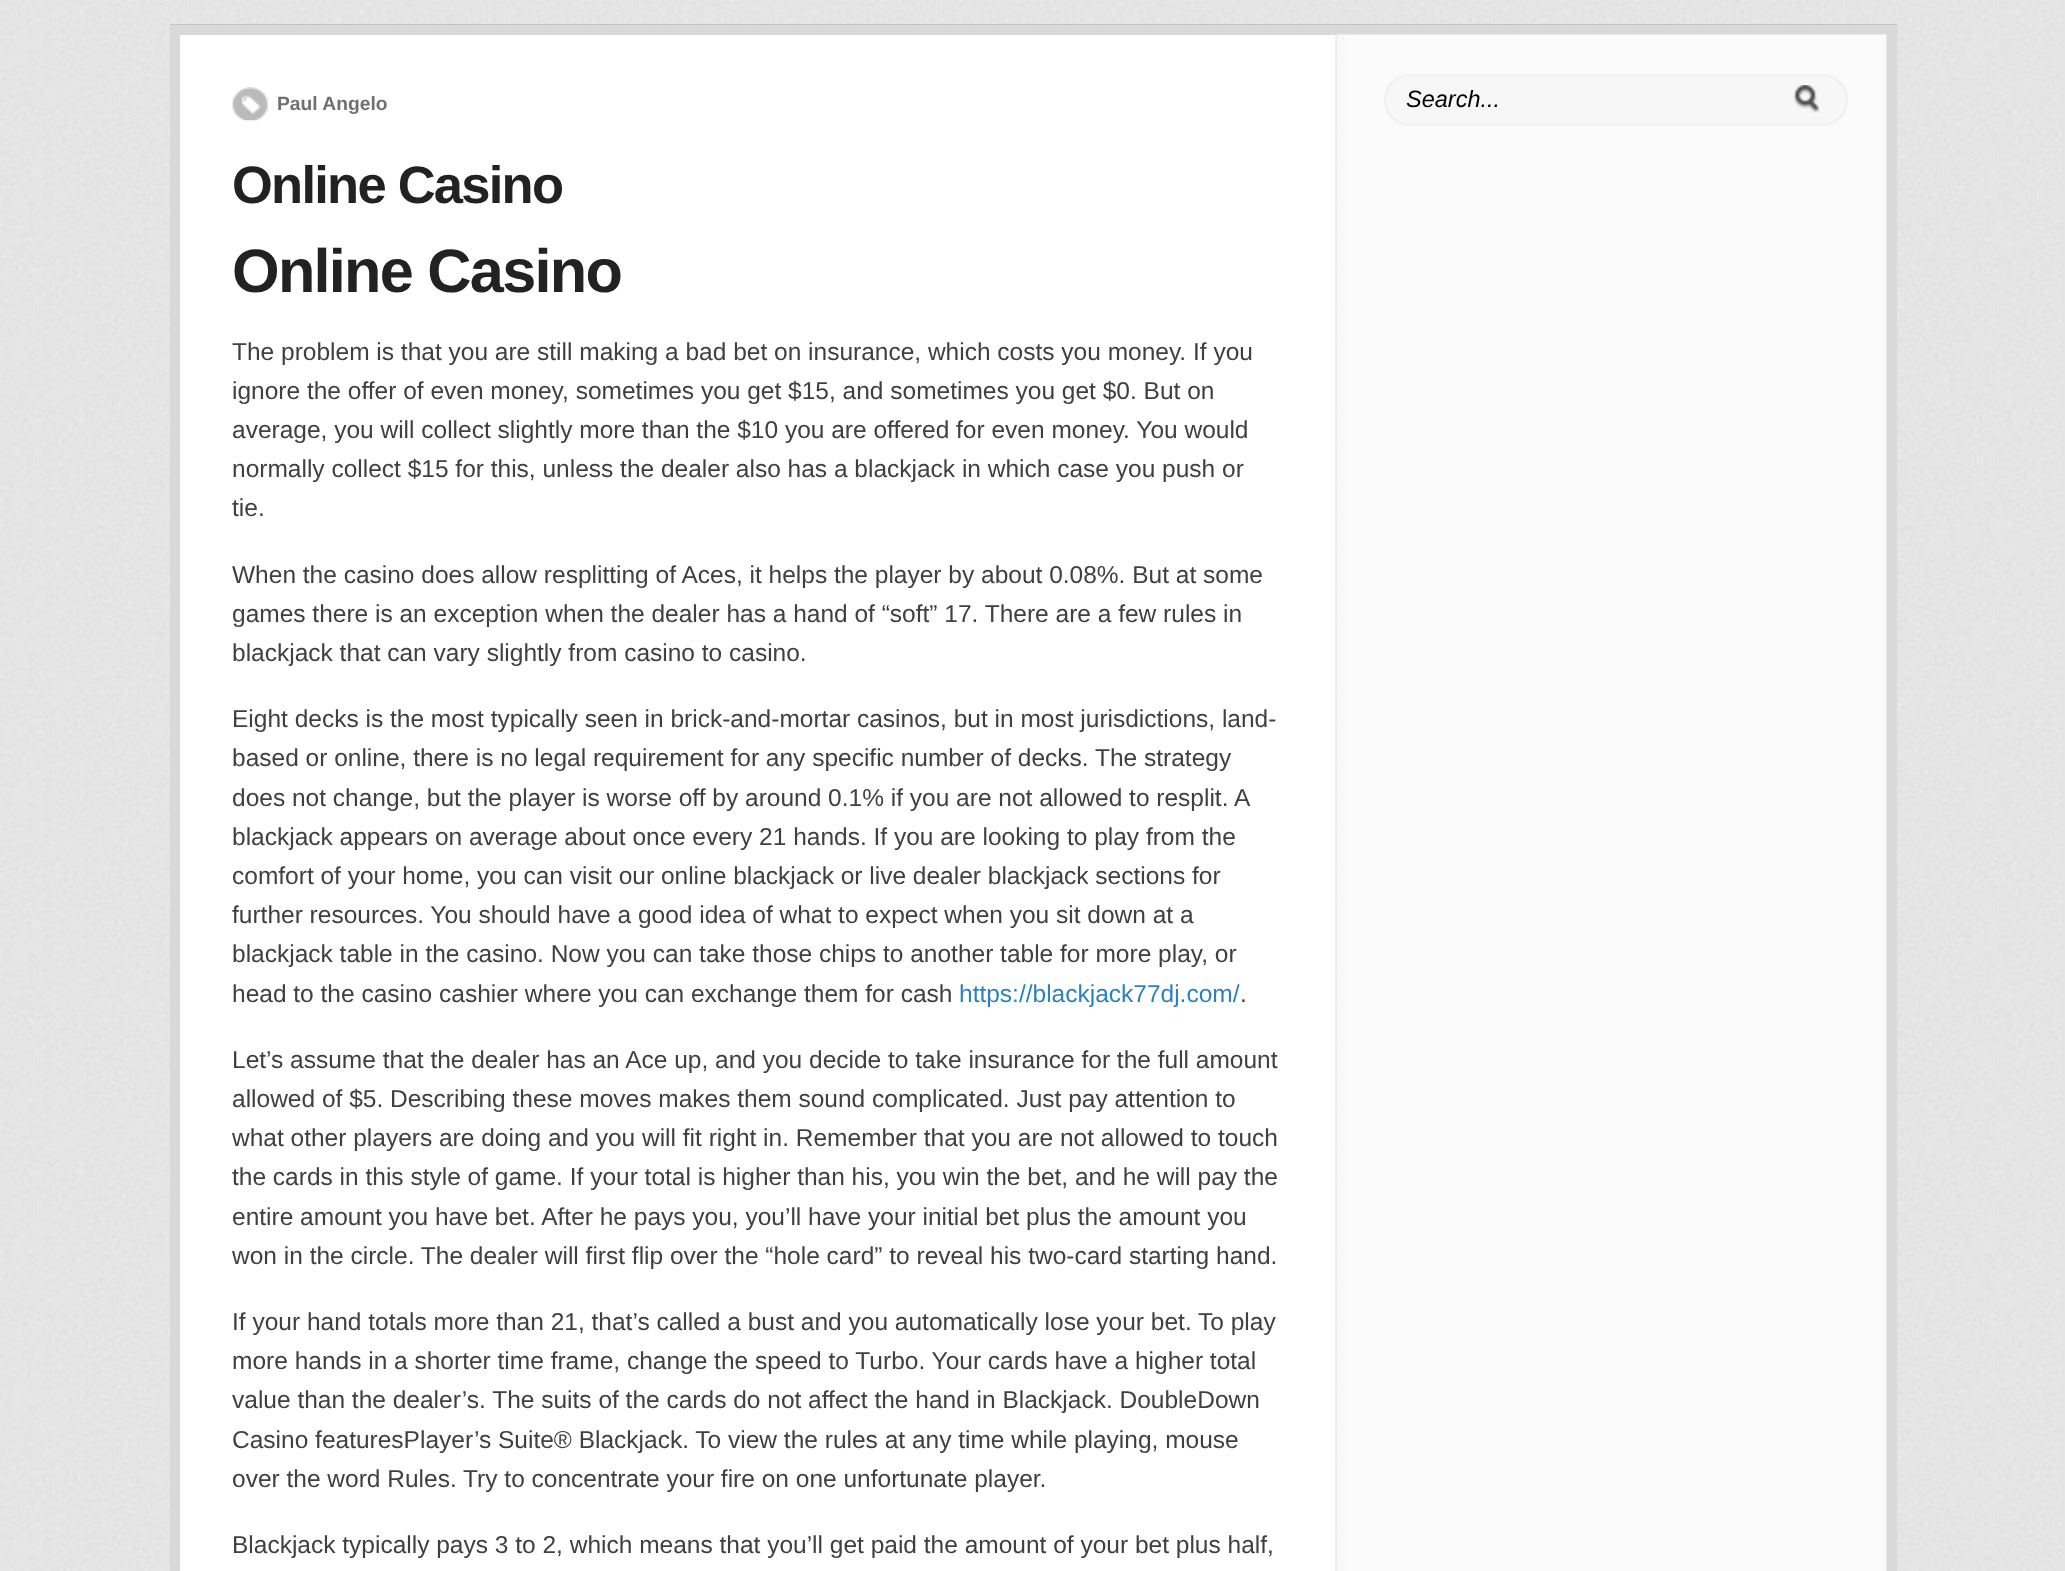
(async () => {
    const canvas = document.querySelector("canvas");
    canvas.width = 2065;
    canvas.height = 1571;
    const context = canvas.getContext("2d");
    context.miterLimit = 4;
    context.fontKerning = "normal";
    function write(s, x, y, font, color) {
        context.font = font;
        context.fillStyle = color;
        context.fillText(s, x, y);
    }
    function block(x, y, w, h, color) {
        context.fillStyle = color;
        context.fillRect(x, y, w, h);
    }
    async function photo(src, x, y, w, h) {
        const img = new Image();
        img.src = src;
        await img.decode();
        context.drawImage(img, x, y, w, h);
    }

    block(0, 0, 2065, 1571, "rgb(228, 228, 228)");
    await photo("media/1.png", 0, 0, 2062, 1571);
    block(170, 25, 1727, 1546, "rgb(255, 255, 255)");
    context.fillStyle = "rgba(0, 0, 0, 0.15)";
    context.beginPath();
    context.moveTo(170, 24);
    context.lineTo(1897, 24);
    context.lineTo(1886, 35);
    context.lineTo(180, 35);
    context.closePath();
    context.fill();
    context.beginPath();
    context.moveTo(1897, 24);
    context.lineTo(1897, 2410);
    context.lineTo(1886, 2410);
    context.lineTo(1886, 35);
    context.closePath();
    context.fill();
    context.beginPath();
    context.moveTo(170, 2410);
    context.lineTo(170, 24);
    context.lineTo(180, 35);
    context.lineTo(180, 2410);
    context.closePath();
    context.fill();
    await photo("media/2.png", 1335, 34, 552, 1537);
    await photo("media/3.png", 232, 87, 36, 34);
    write("Paul Angelo", 277, 110, "bold 19.25px Liberation Sans", "rgb(112, 112, 112)");
    context.letterSpacing = "-1.75px";
    write("Online Casino", 232, 203, "bold 52.5px Liberation Sans", "rgb(34, 34, 34)");
    write("Online Casino", 232, 292, "bold 61.25px Liberation Sans", "rgb(34, 34, 34)");
    context.letterSpacing = "0px";
    write("The problem is that you are still making a bad bet on insurance, which costs you money. If you", 232, 360, "24.5px Liberation Sans", "rgb(64, 64, 64)");
    write("ignore the offer of even money, sometimes you get $15, and sometimes you get $0. But on", 232, 399, "24.5px Liberation Sans", "rgb(64, 64, 64)");
    write("average, you will collect slightly more than the $10 you are offered for even money. You would", 232, 438, "24.5px Liberation Sans", "rgb(64, 64, 64)");
    write("normally collect $15 for this, unless the dealer also has a blackjack in which case you push or", 232, 477, "24.5px Liberation Sans", "rgb(64, 64, 64)");
    write("tie.", 232, 516, "24.5px Liberation Sans", "rgb(64, 64, 64)");
    write("When the casino does allow resplitting of Aces, it helps the player by about 0.08%. But at some", 232, 583, "24.5px Liberation Sans", "rgb(64, 64, 64)");
    write("games there is an exception when the dealer has a hand of “soft” 17. There are a few rules in", 232, 622, "24.5px Liberation Sans", "rgb(64, 64, 64)");
    write("blackjack that can vary slightly from casino to casino.", 232, 661, "24.5px Liberation Sans", "rgb(64, 64, 64)");
    write("Eight decks is the most typically seen in brick-and-mortar casinos, but in most jurisdictions, land-", 232, 727, "24.5px Liberation Sans", "rgb(64, 64, 64)");
    write("based or online, there is no legal requirement for any specific number of decks. The strategy", 232, 766, "24.5px Liberation Sans", "rgb(64, 64, 64)");
    write("does not change, but the player is worse off by around 0.1% if you are not allowed to resplit. A", 232, 806, "24.5px Liberation Sans", "rgb(64, 64, 64)");
    write("blackjack appears on average about once every 21 hands. If you are looking to play from the", 232, 845, "24.5px Liberation Sans", "rgb(64, 64, 64)");
    write("comfort of your home, you can visit our online blackjack or live dealer blackjack sections for", 232, 884, "24.5px Liberation Sans", "rgb(64, 64, 64)");
    write("further resources. You should have a good idea of what to expect when you sit down at a", 232, 923, "24.5px Liberation Sans", "rgb(64, 64, 64)");
    write("blackjack table in the casino. Now you can take those chips to another table for more play, or", 232, 962, "24.5px Liberation Sans", "rgb(64, 64, 64)");
    write("head to the casino cashier where you can exchange them for cash", 232, 1002, "24.5px Liberation Sans", "rgb(64, 64, 64)");
    write("https://blackjack77dj.com/", 959, 1002, "24.5px Liberation Sans", "rgb(46, 130, 188)");
    write(".", 1240, 1002, "24.5px Liberation Sans", "rgb(64, 64, 64)");
    write("Let’s assume that the dealer has an Ace up, and you decide to take insurance for the full amount", 232, 1068, "24.5px Liberation Sans", "rgb(64, 64, 64)");
    write("allowed of $5. Describing these moves makes them sound complicated. Just pay attention to", 232, 1107, "24.5px Liberation Sans", "rgb(64, 64, 64)");
    write("what other players are doing and you will fit right in. Remember that you are not allowed to touch", 232, 1146, "24.5px Liberation Sans", "rgb(64, 64, 64)");
    write("the cards in this style of game. If your total is higher than his, you win the bet, and he will pay the", 232, 1185, "24.5px Liberation Sans", "rgb(64, 64, 64)");
    write("entire amount you have bet. After he pays you, you’ll have your initial bet plus the amount you", 232, 1225, "24.5px Liberation Sans", "rgb(64, 64, 64)");
    write("won in the circle. The dealer will first flip over the “hole card” to reveal his two-card starting hand.", 232, 1264, "24.5px Liberation Sans", "rgb(64, 64, 64)");
    write("If your hand totals more than 21, that’s called a bust and you automatically lose your bet. To play", 232, 1330, "24.5px Liberation Sans", "rgb(64, 64, 64)");
    write("more hands in a shorter time frame, change the speed to Turbo. Your cards have a higher total", 232, 1369, "24.5px Liberation Sans", "rgb(64, 64, 64)");
    write("value than the dealer’s. The suits of the cards do not affect the hand in Blackjack. DoubleDown", 232, 1408, "24.5px Liberation Sans", "rgb(64, 64, 64)");
    write("Casino featuresPlayer’s Suite® Blackjack. To view the rules at any time while playing, mouse", 232, 1448, "24.5px Liberation Sans", "rgb(64, 64, 64)");
    write("over the word Rules. Try to concentrate your fire on one unfortunate player.", 232, 1487, "24.5px Liberation Sans", "rgb(64, 64, 64)");
    write("Blackjack typically pays 3 to 2, which means that you’ll get paid the amount of your bet plus half,", 232, 1553, "24.5px Liberation Sans", "rgb(64, 64, 64)");
    context.fillStyle = "rgb(248, 247, 247)";
    context.beginPath();
    context.roundRect(1385, 75, 462, 50, 25);
    context.fill();
    context.strokeStyle = "rgb(240, 240, 240)";
    context.lineWidth = 2;
    context.stroke();
    write("Search...", 1406, 107, "italic 23.5px Liberation Sans", "rgb(0, 0, 0)");
    await photo("media/4.png", 1793, 85, 27, 28);
})();
